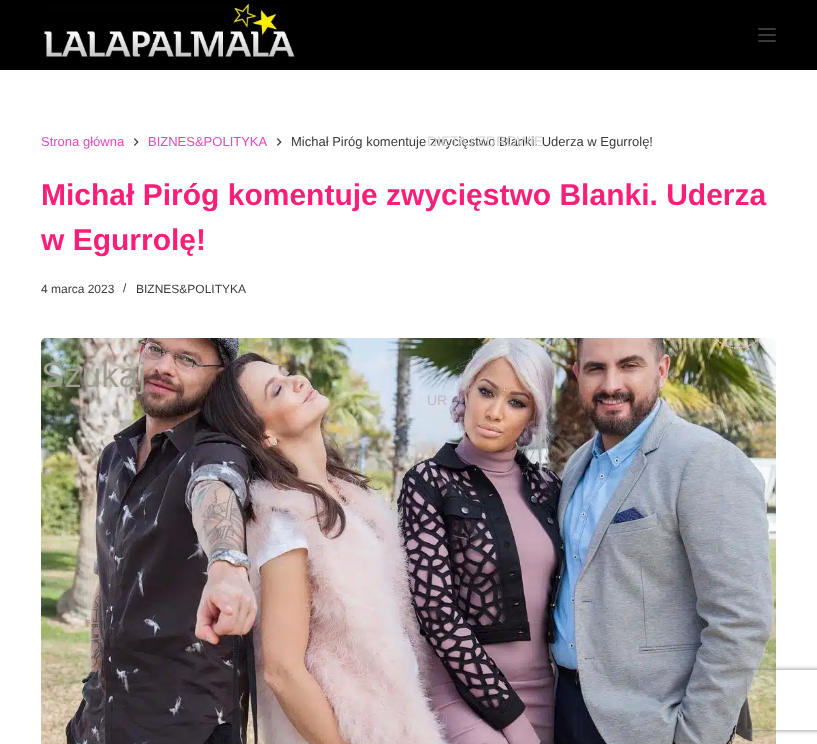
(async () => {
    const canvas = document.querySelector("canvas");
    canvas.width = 817;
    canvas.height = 744;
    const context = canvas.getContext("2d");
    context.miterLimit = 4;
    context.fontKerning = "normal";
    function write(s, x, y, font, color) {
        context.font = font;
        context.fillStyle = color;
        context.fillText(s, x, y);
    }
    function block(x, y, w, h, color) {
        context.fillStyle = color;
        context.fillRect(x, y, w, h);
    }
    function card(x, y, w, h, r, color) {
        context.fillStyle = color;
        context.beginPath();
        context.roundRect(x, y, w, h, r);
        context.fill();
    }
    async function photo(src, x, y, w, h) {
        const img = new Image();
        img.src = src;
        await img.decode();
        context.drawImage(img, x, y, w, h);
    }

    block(0, 0, 817, 744, "rgb(255, 255, 255)");
    await photo("media/3.png", 41, 338, 735, 406);
    write("Szukaj", 41, 387, "35px Liberation Sans", "rgb(157, 156, 142)");
    write("Michał Piróg komentuje zwycięstwo Blanki. Uderza w Egurrolę!", 291, 146, "13px Liberation Sans", "rgb(58, 58, 58)");
    write("DIETA i ZDROWIE", 427, 146, "14px Liberation Sans", "rgb(211, 211, 211)");
    write("UR", 427, 405, "14px Liberation Sans", "rgb(193, 184, 193)");
    block(0, 0, 817, 70, "rgb(0, 0, 0)");
    await photo("media/1.png", 44, 3, 251, 54);
    card(758, 28, 18, 2, 1, "rgb(58, 58, 58)");
    card(758, 34, 18, 2, 1, "rgb(58, 58, 58)");
    card(758, 40, 18, 2, 1, "rgb(58, 58, 58)");
    write("Strona główna", 41, 146, "13px Liberation Sans", "rgb(229, 73, 189)");
    await photo("media/2.png", 134, 138, 5, 8);
    write("BIZNES&POLITYKA", 148, 146, "13px Liberation Sans", "rgb(229, 73, 189)");
    await photo("media/2.png", 277, 138, 5, 8);
    write("Michał Piróg komentuje zwycięstwo Blanki. Uderza", 41, 205, "bold 30px Liberation Sans", "rgb(247, 31, 120)");
    write("w Egurrolę!", 41, 250, "bold 30px Liberation Sans", "rgb(247, 31, 120)");
    write("4 marca 2023", 41, 293, "12px Liberation Sans", "rgb(58, 58, 58)");
    write("/", 123, 292, "12px Liberation Sans", "rgb(58, 58, 58)");
    write("BIZNES&POLITYKA", 136, 293, "12px Liberation Sans", "rgb(58, 58, 58)");
    context.save();
    context.beginPath();
    context.moveTo(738, 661);
    context.lineTo(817, 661);
    context.lineTo(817, 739);
    context.lineTo(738, 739);
    context.closePath();
    context.moveTo(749, 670);
    context.lineTo(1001, 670);
    context.bezierCurveTo(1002, 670, 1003, 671, 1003, 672);
    context.lineTo(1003, 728);
    context.bezierCurveTo(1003, 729, 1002, 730, 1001, 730);
    context.lineTo(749, 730);
    context.bezierCurveTo(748, 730, 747, 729, 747, 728);
    context.lineTo(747, 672);
    context.bezierCurveTo(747, 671, 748, 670, 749, 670);
    context.closePath();
    context.clip("evenodd");
    context.fillStyle = "rgb(128, 128, 128)";
    context.filter = "blur(2.5px)";
    context.beginPath();
    context.roundRect(747, 670, 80, 60, 2);
    context.fill();
    context.filter = "none";
    context.restore();
})();
